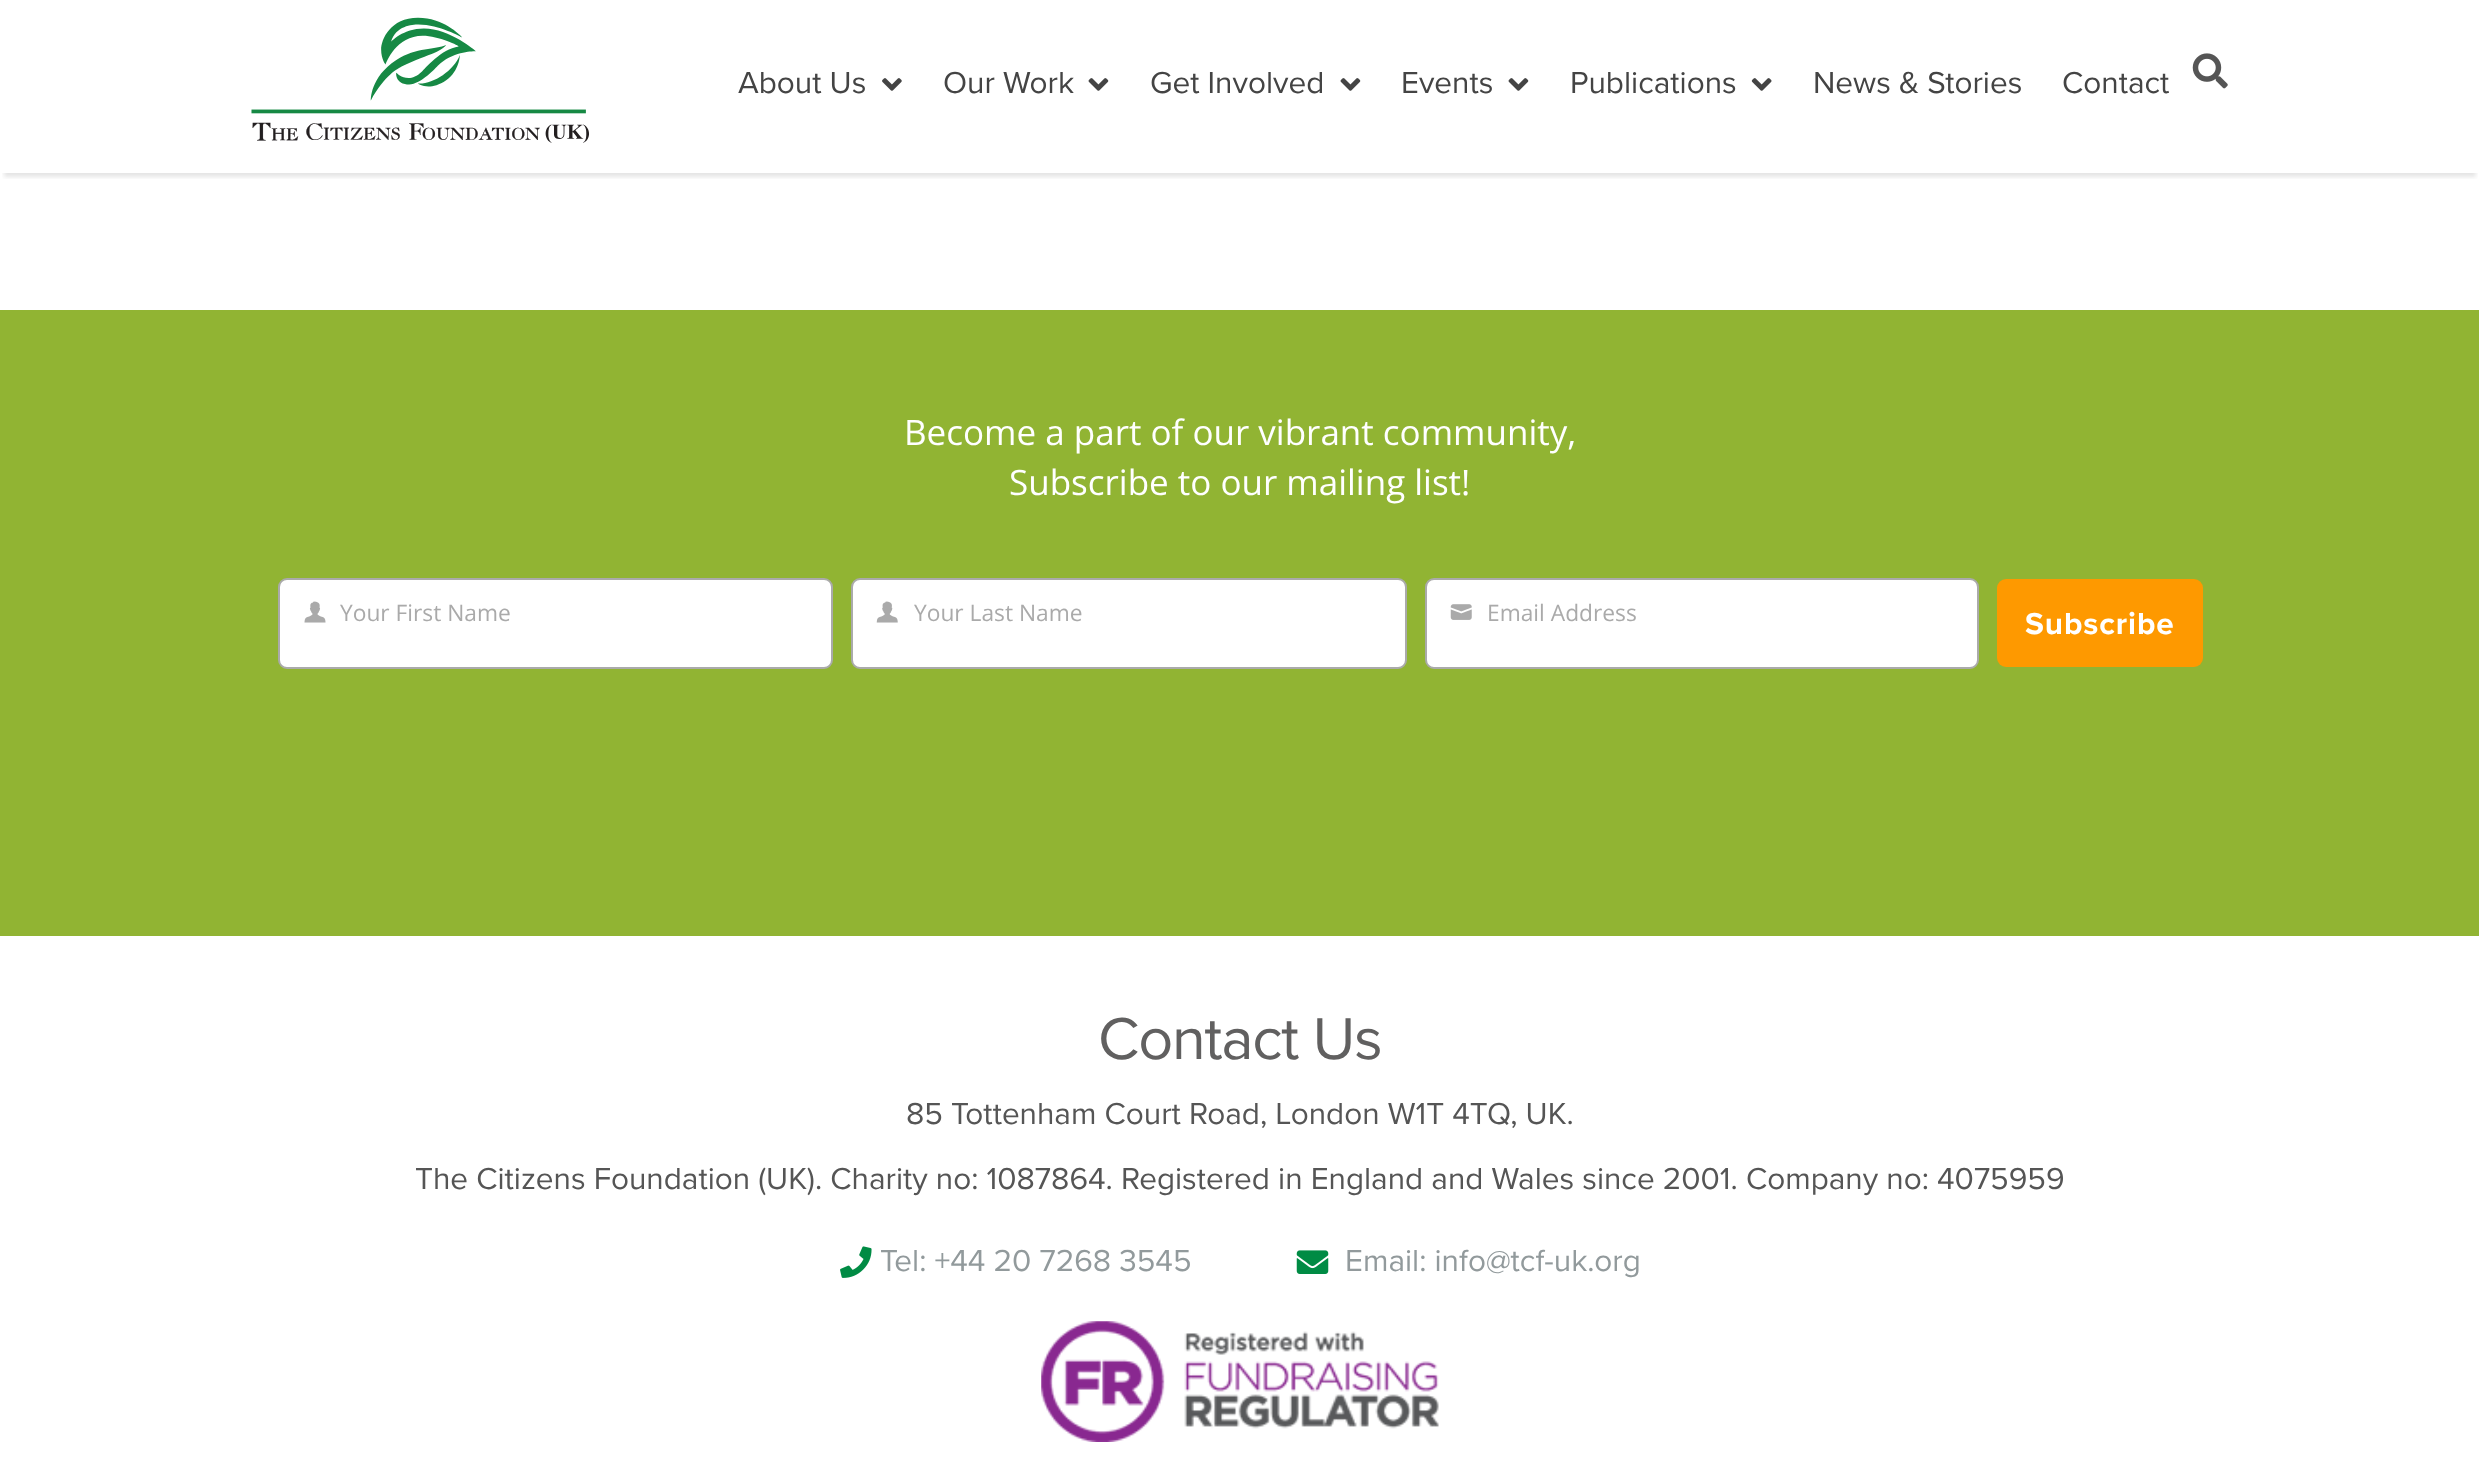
(async () => {
    const canvas = document.querySelector("canvas");
    canvas.width = 2479;
    canvas.height = 1465;
    const context = canvas.getContext("2d");
    context.miterLimit = 4;
    context.fontKerning = "normal";
    function write(s, x, y, font, color) {
        context.font = font;
        context.fillStyle = color;
        context.fillText(s, x, y);
    }
    function block(x, y, w, h, color) {
        context.fillStyle = color;
        context.fillRect(x, y, w, h);
    }
    function card(x, y, w, h, r, color) {
        context.fillStyle = color;
        context.beginPath();
        context.roundRect(x, y, w, h, r);
        context.fill();
    }
    async function photo(src, x, y, w, h) {
        const img = new Image();
        img.src = src;
        await img.decode();
        context.drawImage(img, x, y, w, h);
    }

    block(0, 0, 2479, 1465, "rgb(255, 255, 255)");
    context.save();
    context.beginPath();
    context.rect(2, 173, 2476, 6);
    context.clip();
    context.fillStyle = "rgba(0, 0, 0, 0.1)";
    context.filter = "blur(2px)";
    context.beginPath();
    context.rect(4, -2, 2472, 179);
    context.fill();
    context.filter = "none";
    context.restore();
    await photo("media/1.png", 251, 17, 338, 126);
    write("About Us", 738, 93, "31.5px Proxima Nova", "rgb(68, 68, 68)");
    await photo("media/2.png", 882, 78, 20, 13);
    write("Our Work", 943, 93, "31.5px Proxima Nova", "rgb(68, 68, 68)");
    await photo("media/3.png", 1088, 78, 21, 13);
    write("Get Involved", 1150, 93, "31.5px Proxima Nova", "rgb(68, 68, 68)");
    await photo("media/3.png", 1340, 78, 21, 13);
    write("Events", 1401, 93, "31.5px Proxima Nova", "rgb(68, 68, 68)");
    await photo("media/3.png", 1508, 78, 21, 13);
    write("Publications", 1570, 93, "31.5px Proxima Nova", "rgb(68, 68, 68)");
    await photo("media/4.png", 1751, 78, 21, 13);
    write("News & Stories", 1813, 93, "31.5px Proxima Nova", "rgb(68, 68, 68)");
    write("Contact", 2062, 93, "31.5px Proxima Nova", "rgb(68, 68, 68)");
    await photo("media/5.png", 2192, 53, 36, 36);
    block(0, 310, 2479, 626, "rgb(145, 180, 51)");
    write("Become a part of our vibrant community,", 904, 445, "35px Open Sans", "rgb(255, 255, 255)");
    write("Subscribe to our mailing list!", 1009, 495, "35px Open Sans", "rgb(255, 255, 255)");
    context.beginPath();
    context.roundRect(279, 579, 553, 89, 8);
    context.fill();
    context.strokeStyle = "rgb(170, 170, 170)";
    context.lineWidth = 2;
    context.stroke();
    await photo("media/6.png", 304, 601, 22, 22);
    write("Your First Name", 340, 621, "22.75px Open Sans", "rgb(170, 170, 170)");
    context.fillStyle = "rgb(255, 255, 255)";
    context.beginPath();
    context.roundRect(852, 579, 554, 89, 8);
    context.fill();
    context.stroke();
    await photo("media/7.png", 876, 601, 22, 22);
    write("Your Last Name", 914, 621, "22.75px Open Sans", "rgb(170, 170, 170)");
    context.fillStyle = "rgb(255, 255, 255)";
    context.beginPath();
    context.roundRect(1426, 579, 552, 89, 8);
    context.fill();
    context.stroke();
    await photo("media/8.png", 1450, 604, 22, 16);
    write("Email Address", 1487, 621, "22.75px Open Sans", "rgb(170, 170, 170)");
    card(1997, 579, 206, 88, 9, "rgb(254, 153, 0)");
    context.letterSpacing = "0.9px";
    write("Subscribe", 2025, 634, "bold 31.5px Proxima Nova", "rgb(255, 255, 255)");
    context.letterSpacing = "-1.25px";
    write("Contact Us", 1098, 1059, "61.25px Proxima Nova", "rgb(97, 96, 96)");
    context.letterSpacing = "0px";
    write("85 Tottenham Court Road, London W1T 4TQ, UK.", 906, 1124, "31.5px Proxima Nova", "rgb(85, 85, 85)");
    write("The Citizens Foundation (UK). Charity no: 1087864. Registered in England and Wales since 2001. Company no: 4075959", 415, 1189, "31.5px Proxima Nova", "rgb(85, 85, 85)");
    await photo("media/9.png", 840, 1246, 32, 32);
    write("Tel: +44 20 7268 3545", 880, 1271, "31.5px Proxima Nova", "rgb(146, 154, 156)");
    await photo("media/10.png", 1296, 1250, 33, 24);
    write("Email: info@tcf-uk.org", 1345, 1271, "31.5px Proxima Nova", "rgb(146, 154, 156)");
    await photo("media/11.png", 1041, 1321, 398, 121);
})();
